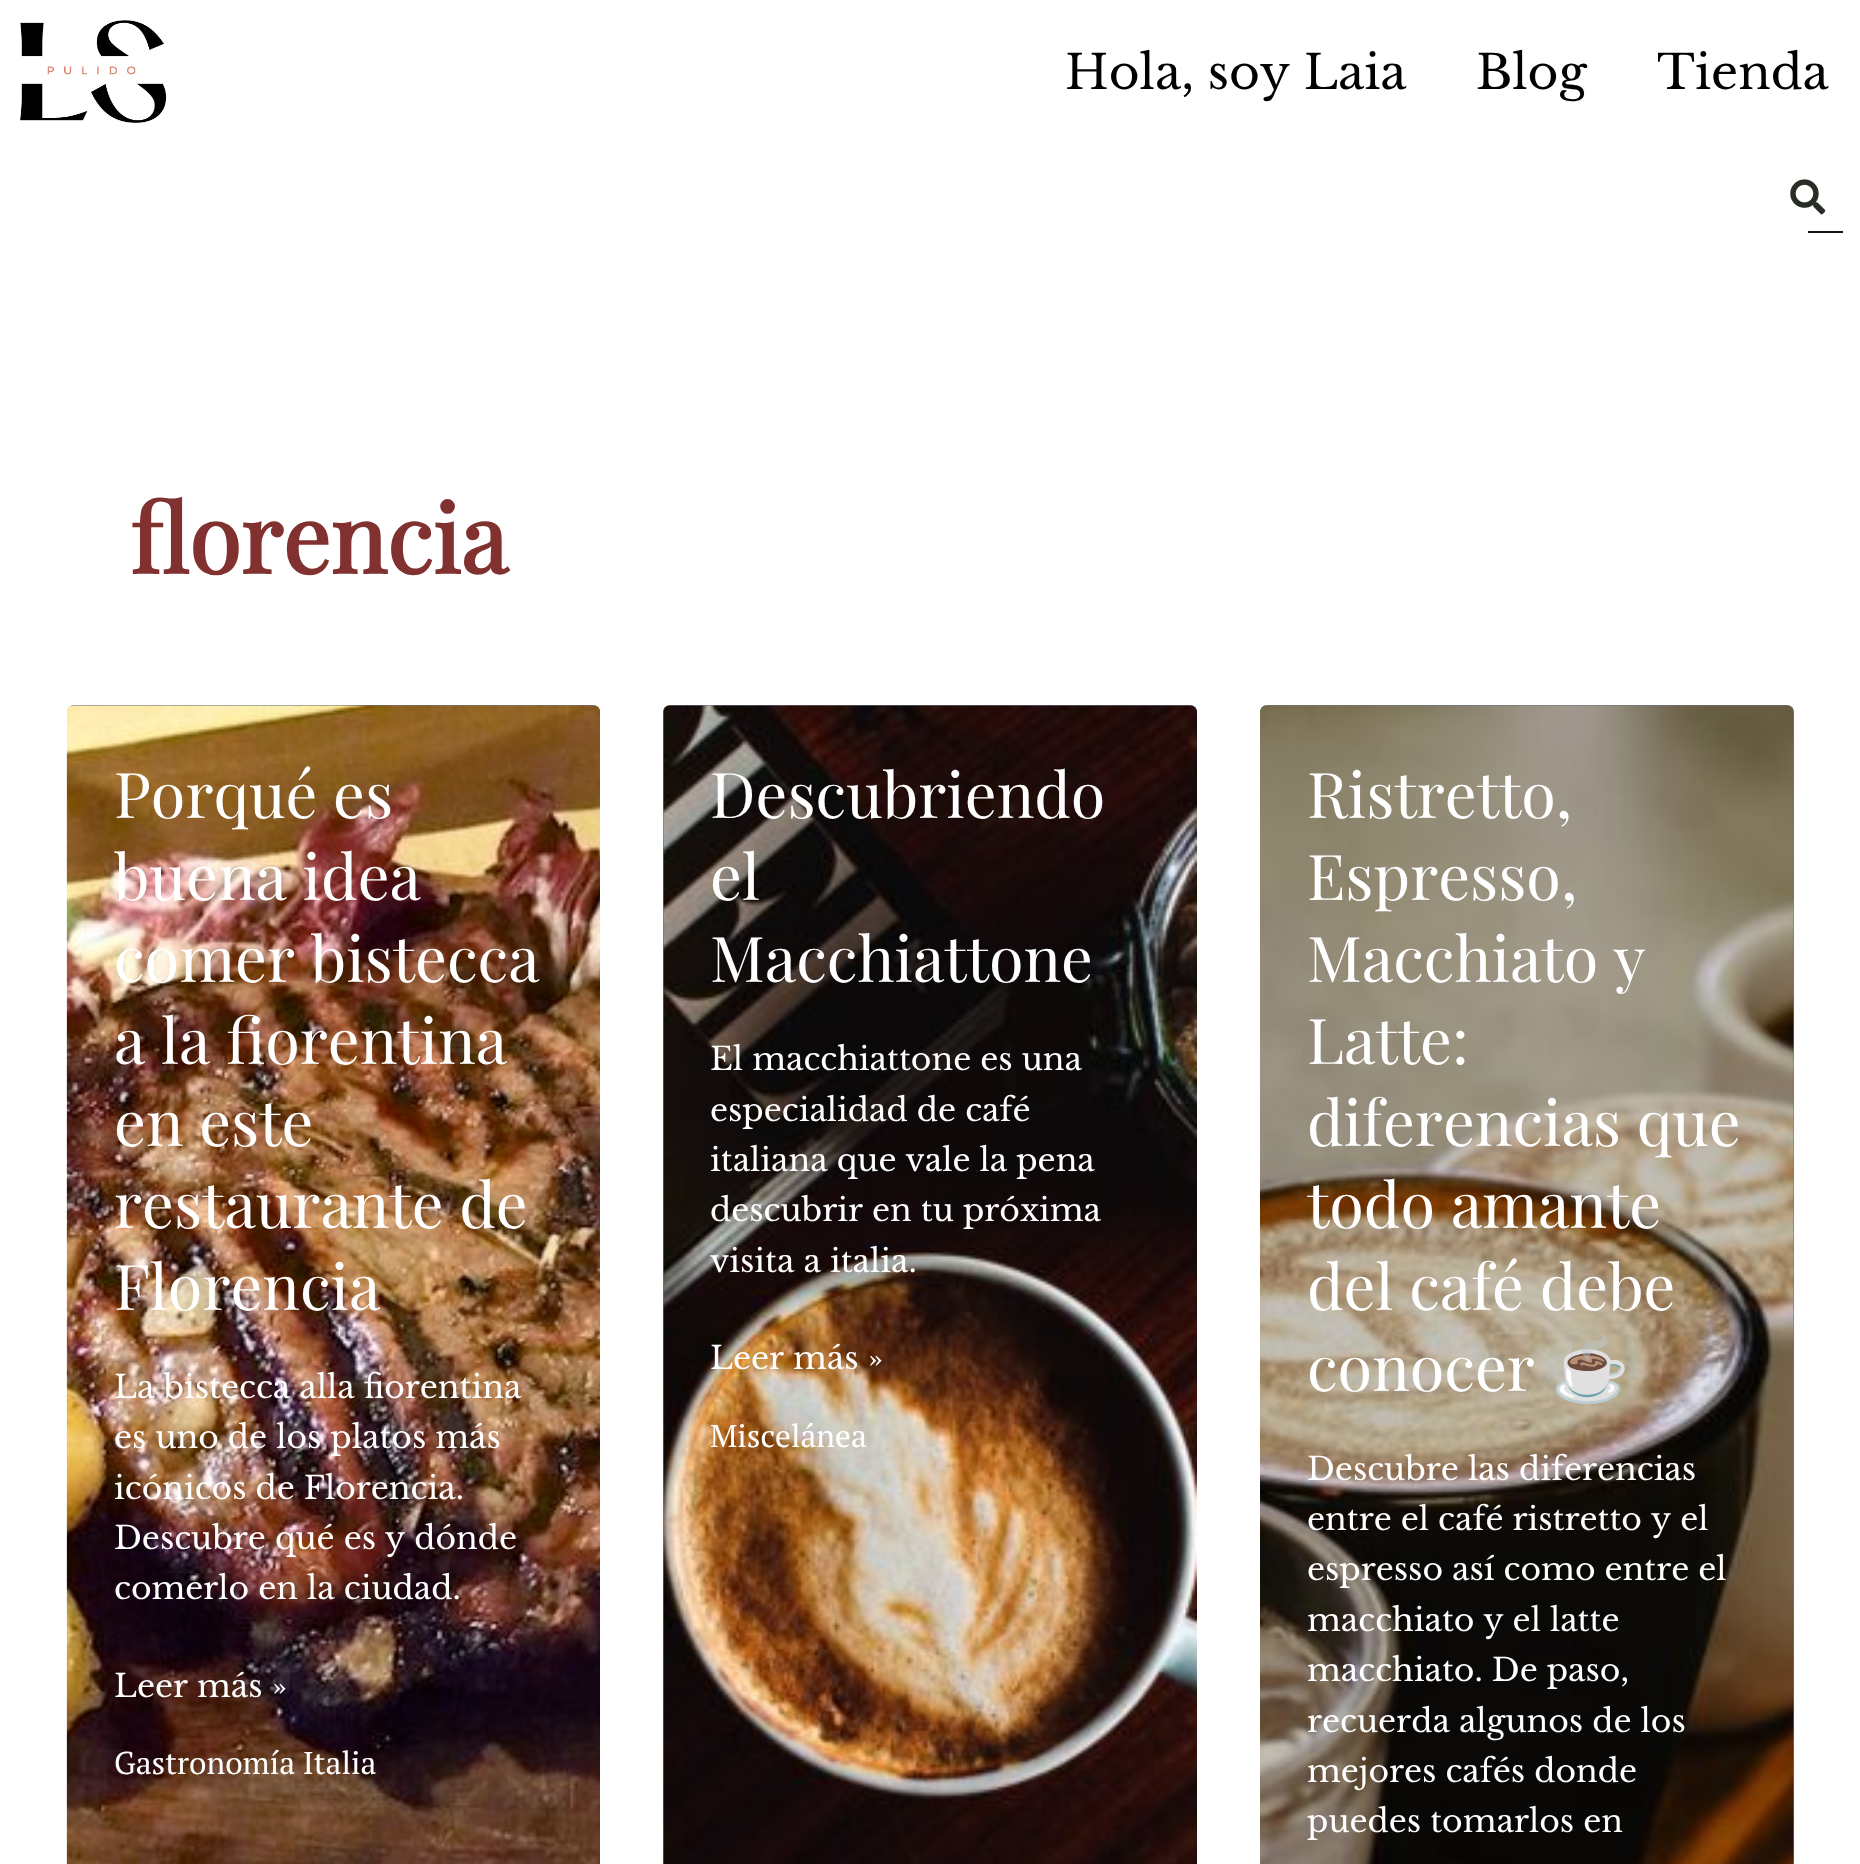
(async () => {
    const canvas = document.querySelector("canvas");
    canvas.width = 1860;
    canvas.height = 1864;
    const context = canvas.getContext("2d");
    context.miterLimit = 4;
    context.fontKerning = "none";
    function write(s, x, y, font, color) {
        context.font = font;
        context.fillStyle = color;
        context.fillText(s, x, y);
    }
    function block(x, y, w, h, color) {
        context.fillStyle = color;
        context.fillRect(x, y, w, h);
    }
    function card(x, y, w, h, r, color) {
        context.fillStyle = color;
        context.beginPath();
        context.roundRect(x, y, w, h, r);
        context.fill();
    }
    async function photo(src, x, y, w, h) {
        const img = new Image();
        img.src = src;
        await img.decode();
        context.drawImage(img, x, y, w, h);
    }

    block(0, 0, 1860, 1864, "rgb(255, 255, 255)");
    await photo("media/1.png", 20, 20, 147, 103);
    write("Hola, soy Laia", 1065, 89, "47.25px Libre Baskerville", "rgb(0, 0, 0)");
    write("Blog", 1476, 89, "47.25px Libre Baskerville", "rgb(0, 0, 0)");
    write("Tienda", 1657, 89, "47.25px Libre Baskerville", "rgb(0, 0, 0)");
    await photo("media/2.png", 1790, 179, 36, 36);
    block(1808, 231, 35, 2, "rgb(18, 18, 18)");
    write("florencia", 130, 574, "bold 94.5px Playfair Display", "rgb(129, 49, 47)");
    card(67, 705, 533, 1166, 7, "rgb(109, 116, 128)");
    await photo("media/3.png", 66, 705, 534, 1159);
    write("Porqué es", 114, 818, "63px Playfair Display", "rgb(255, 255, 255)");
    write("buena idea", 114, 900, "63px Playfair Display", "rgb(255, 255, 255)");
    write("comer bistecca", 114, 982, "63px Playfair Display", "rgb(255, 255, 255)");
    write("a la fiorentina", 114, 1064, "63px Playfair Display", "rgb(255, 255, 255)");
    write("en este", 114, 1146, "63px Playfair Display", "rgb(255, 255, 255)");
    write("restaurante de", 114, 1228, "63px Playfair Display", "rgb(255, 255, 255)");
    write("Florencia", 114, 1310, "63px Playfair Display", "rgb(255, 255, 255)");
    write("La bistecca alla fiorentina", 114, 1398, "31.5px Libre Baskerville", "rgb(255, 255, 255)");
    write("es uno de los platos más", 114, 1448, "31.5px Libre Baskerville", "rgb(255, 255, 255)");
    write("icónicos de Florencia.", 114, 1499, "31.5px Libre Baskerville", "rgb(255, 255, 255)");
    write("Descubre qué es y dónde", 114, 1549, "31.5px Libre Baskerville", "rgb(255, 255, 255)");
    write("comerlo en la ciudad.", 114, 1599, "31.5px Libre Baskerville", "rgb(255, 255, 255)");
    write("Leer más »", 114, 1697, "31.5px Libre Baskerville", "rgb(255, 255, 255)");
    write("Gastronomía Italia", 114, 1774, "31.5px PT Serif", "rgb(255, 255, 255)");
    card(663, 705, 534, 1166, 7, "rgb(109, 116, 128)");
    await photo("media/4.png", 663, 705, 534, 1159);
    write("Descubriendo", 710, 818, "63px Playfair Display", "rgb(255, 255, 255)");
    write("el", 710, 900, "63px Playfair Display", "rgb(255, 255, 255)");
    write("Macchiattone", 710, 982, "63px Playfair Display", "rgb(255, 255, 255)");
    write("El macchiattone es una", 710, 1070, "31.5px Libre Baskerville", "rgb(255, 255, 255)");
    write("especialidad de café", 710, 1121, "31.5px Libre Baskerville", "rgb(255, 255, 255)");
    write("italiana que vale la pena", 710, 1171, "31.5px Libre Baskerville", "rgb(255, 255, 255)");
    write("descubrir en tu próxima", 710, 1221, "31.5px Libre Baskerville", "rgb(255, 255, 255)");
    write("visita a italia.", 710, 1272, "31.5px Libre Baskerville", "rgb(255, 255, 255)");
    write("Leer más »", 710, 1369, "31.5px Libre Baskerville", "rgb(255, 255, 255)");
    write("Miscelánea", 710, 1447, "31.5px PT Serif", "rgb(255, 255, 255)");
    card(1260, 705, 534, 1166, 7, "rgb(109, 116, 128)");
    await photo("media/5.png", 1260, 705, 534, 1159);
    write("Ristretto,", 1307, 818, "63px Playfair Display", "rgb(255, 255, 255)");
    write("Espresso,", 1307, 900, "63px Playfair Display", "rgb(255, 255, 255)");
    write("Macchiato y", 1307, 982, "63px Playfair Display", "rgb(255, 255, 255)");
    write("Latte:", 1307, 1064, "63px Playfair Display", "rgb(255, 255, 255)");
    write("diferencias que", 1307, 1146, "63px Playfair Display", "rgb(255, 255, 255)");
    write("todo amante", 1307, 1228, "63px Playfair Display", "rgb(255, 255, 255)");
    write("del café debe", 1307, 1310, "63px Playfair Display", "rgb(255, 255, 255)");
    write("conocer", 1307, 1391, "63px Playfair Display", "rgb(255, 255, 255)");
    write("☕", 1551, 1391, "63px Noto Color Emoji", "rgb(255, 255, 255)");
    write("Descubre las diferencias", 1307, 1480, "31.5px Libre Baskerville", "rgb(255, 255, 255)");
    write("entre el café ristretto y el", 1307, 1530, "31.5px Libre Baskerville", "rgb(255, 255, 255)");
    write("espresso así como entre el", 1307, 1580, "31.5px Libre Baskerville", "rgb(255, 255, 255)");
    write("macchiato y el latte", 1307, 1631, "31.5px Libre Baskerville", "rgb(255, 255, 255)");
    write("macchiato. De paso,", 1307, 1681, "31.5px Libre Baskerville", "rgb(255, 255, 255)");
    write("recuerda algunos de los", 1307, 1732, "31.5px Libre Baskerville", "rgb(255, 255, 255)");
    write("mejores cafés donde", 1307, 1782, "31.5px Libre Baskerville", "rgb(255, 255, 255)");
    write("puedes tomarlos en", 1307, 1832, "31.5px Libre Baskerville", "rgb(255, 255, 255)");
})();
